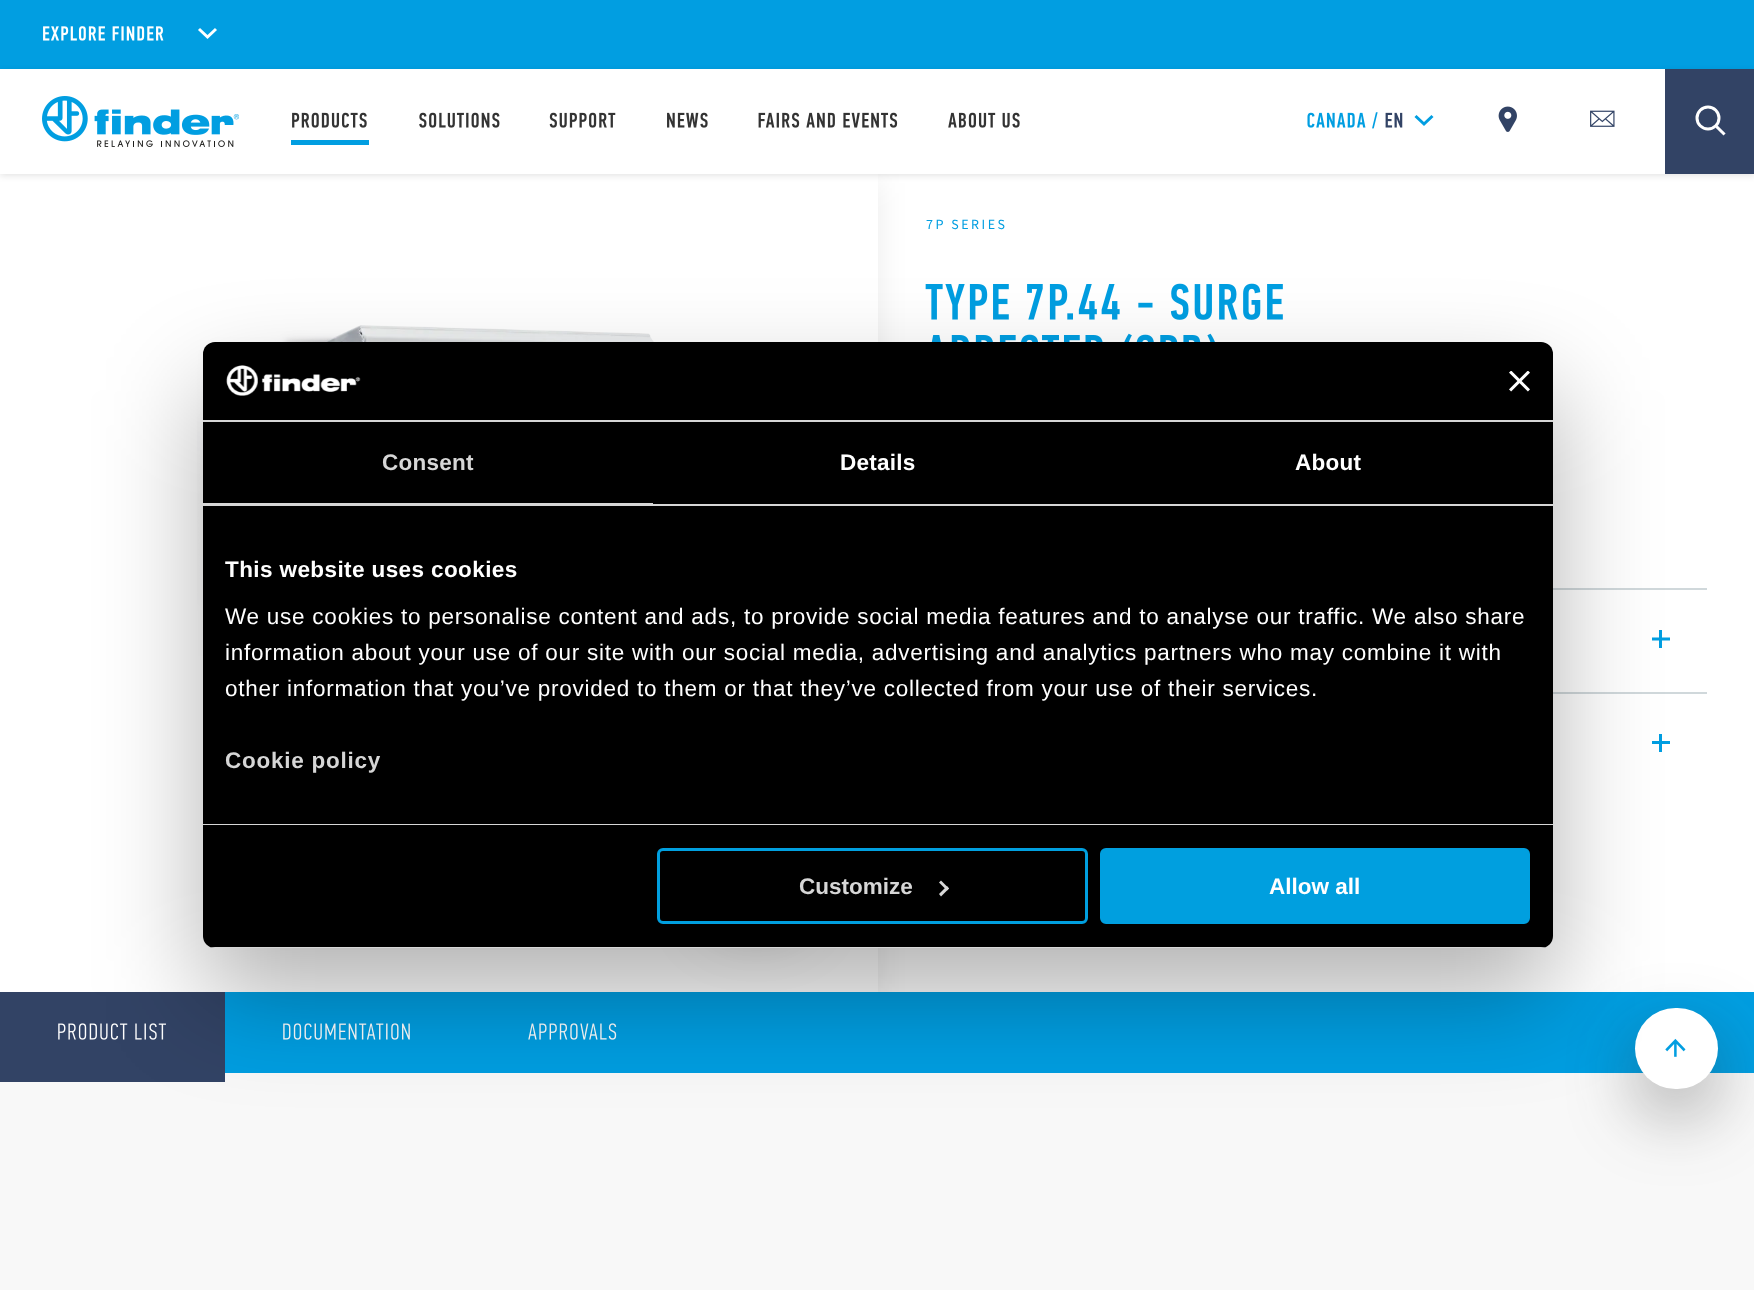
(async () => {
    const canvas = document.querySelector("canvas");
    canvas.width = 1754;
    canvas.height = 1290;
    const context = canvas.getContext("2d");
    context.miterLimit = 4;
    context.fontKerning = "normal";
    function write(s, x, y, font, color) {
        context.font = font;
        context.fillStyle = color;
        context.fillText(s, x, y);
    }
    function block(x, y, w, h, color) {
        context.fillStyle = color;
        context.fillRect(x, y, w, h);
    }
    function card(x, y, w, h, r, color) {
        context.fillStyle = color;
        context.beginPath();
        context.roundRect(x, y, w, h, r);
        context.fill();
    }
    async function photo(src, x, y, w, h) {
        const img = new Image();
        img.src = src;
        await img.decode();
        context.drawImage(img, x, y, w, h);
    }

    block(0, 0, 1754, 1290, "rgb(248, 248, 248)");
    block(0, 0, 1754, 69, "rgb(1, 158, 225)");
    await photo("media/1.png", 43, 26, 121, 15);
    context.beginPath();
    context.moveTo(199, 29);
    context.lineTo(207.5, 37);
    context.lineTo(216, 29);
    context.strokeStyle = "rgb(255, 255, 255)";
    context.lineWidth = 3;
    context.stroke();
    block(0, 174, 1754, 818, "rgb(255, 255, 255)");
    context.fillStyle = "rgba(0, 0, 0, 0.1)";
    context.filter = "blur(3px)";
    context.beginPath();
    context.rect(0, 71, 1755, 105);
    context.fill();
    context.filter = "none";
    context.save();
    context.beginPath();
    context.moveTo(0, 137);
    context.lineTo(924, 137);
    context.lineTo(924, 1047);
    context.lineTo(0, 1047);
    context.closePath();
    context.moveTo(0, 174);
    context.lineTo(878, 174);
    context.lineTo(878, 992);
    context.lineTo(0, 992);
    context.closePath();
    context.clip("evenodd");
    context.fillStyle = "rgba(0, 0, 0, 0.08)";
    context.filter = "blur(15px)";
    context.beginPath();
    context.rect(0, 183, 878, 818);
    context.fill();
    context.filter = "none";
    context.restore();
    block(0, 69, 1665, 105, "rgb(255, 255, 255)");
    await photo("media/2.png", 42, 96, 197, 51);
    await photo("media/3.png", 292, 112, 75, 16);
    block(291, 140, 78, 5, "rgb(1, 158, 225)");
    await photo("media/4.png", 419, 112, 81, 16);
    await photo("media/5.png", 549, 112, 67, 16);
    await photo("media/6.png", 667, 112, 41, 16);
    await photo("media/7.png", 758, 112, 140, 16);
    await photo("media/8.png", 948, 112, 72, 16);
    await photo("media/9.png", 1307, 112, 71, 17);
    await photo("media/10.png", 1385, 112, 18, 16);
    context.beginPath();
    context.moveTo(1415.5, 116);
    context.lineTo(1424, 124);
    context.lineTo(1432.5, 116);
    context.strokeStyle = "rgb(1, 158, 225)";
    context.stroke();
    await photo("media/11.png", 1498, 106, 19, 26);
    await photo("media/12.png", 1590, 110, 25, 17);
    block(1665, 69, 89, 105, "rgb(50, 67, 101)");
    context.beginPath();
    context.arc(1708, 118, 11, 0, Math.PI * 2);
    context.strokeStyle = "rgb(255, 255, 255)";
    context.stroke();
    context.beginPath();
    context.moveTo(1717.5, 127.5);
    context.lineTo(1723.5, 133.5);
    context.lineCap = "square";
    context.stroke();
    await photo("media/13.png", 197, 325, 457, 331);
    context.fillStyle = "rgba(51, 51, 51, 0.41)";
    context.filter = "blur(34.5px)";
    context.beginPath();
    context.roundRect(716, 840, 81, 81, 40.5);
    context.fill();
    context.filter = "none";
    context.letterSpacing = "2.5px";
    write("7P SERIES", 926, 229, "14px Source Sans Pro", "rgb(1, 158, 225)");
    await photo("media/14.png", 925, 283, 358, 37);
    await photo("media/15.png", 931, 333, 284, 9);
    block(1553, 588, 154, 2, "rgb(208, 216, 219)");
    context.save();
    context.beginPath();
    context.rect(1652, 630, 18, 18);
    context.clip();
    context.beginPath();
    context.moveTo(1651.5, 639);
    context.lineTo(1669.5, 639);
    context.moveTo(1660.5, 648);
    context.lineTo(1660.5, 630);
    context.strokeStyle = "rgb(1, 158, 225)";
    context.stroke();
    context.restore();
    block(1553, 692, 154, 2, "rgb(208, 216, 219)");
    context.save();
    context.beginPath();
    context.rect(1652, 734, 18, 18);
    context.clip();
    context.beginPath();
    context.moveTo(1651.5, 742.5);
    context.lineTo(1669.5, 742.5);
    context.moveTo(1660.5, 751.5);
    context.lineTo(1660.5, 733.5);
    context.strokeStyle = "rgb(1, 158, 225)";
    context.stroke();
    context.restore();
    block(225, 992, 1529, 81, "rgb(1, 158, 225)");
    block(0, 992, 225, 90, "rgb(50, 67, 101)");
    await photo("media/16.png", 58, 1023, 108, 17);
    await photo("media/17.png", 283, 1023, 127, 17);
    await photo("media/18.png", 528, 1023, 89, 17);
    context.fillStyle = "rgba(51, 51, 51, 0.41)";
    context.filter = "blur(34.5px)";
    context.beginPath();
    context.roundRect(1635, 1034, 83, 81, 40.5);
    context.fill();
    context.filter = "none";
    card(1635, 1008, 83, 81, 40.5, "rgb(255, 255, 255)");
    await photo("media/19.png", 1665, 1038, 21, 19);
    context.fillStyle = "rgba(0, 0, 0, 0.3)";
    context.filter = "blur(51px)";
    context.beginPath();
    context.roundRect(203, 390, 1350, 606, 12);
    context.fill();
    context.filter = "none";
    card(203, 342, 1350, 606, 12, "rgb(0, 0, 0)");
    block(203, 420, 1350, 2, "rgb(214, 214, 214)");
    await photo("media/20.png", 226, 365, 135, 31);
    await photo("media/21.png", 1509, 371, 21, 21);
    block(203, 504, 1350, 2, "rgb(214, 214, 214)");
    block(203, 503, 450, 1, "rgb(214, 214, 214)");
    context.letterSpacing = "0.25px";
    write("Consent", 382, 470, "bold 22.5px Liberation Sans", "rgb(214, 214, 214)");
    write("Details", 840, 470, "bold 22.5px Liberation Sans", "rgb(255, 255, 255)");
    write("About", 1295, 470, "bold 22.5px Liberation Sans", "rgb(255, 255, 255)");
    block(203, 824, 1350, 1, "rgb(214, 214, 214)");
    context.letterSpacing = "0.4px";
    write("This website uses cookies", 225, 577, "bold 22.5px Liberation Sans", "rgb(255, 255, 255)");
    context.letterSpacing = "0.75px";
    write("We use cookies to personalise content and ads, to provide social media features and to analyse our traffic. We also share", 225, 624, "22.5px Liberation Sans", "rgb(255, 255, 255)");
    write("information about your use of our site with our social media, advertising and analytics partners who may combine it with", 225, 660, "22.5px Liberation Sans", "rgb(255, 255, 255)");
    write("other information that you’ve provided to them or that they’ve collected from your use of their services.", 225, 696, "22.5px Liberation Sans", "rgb(255, 255, 255)");
    write("Cookie policy", 225, 768, "bold 22.5px Liberation Sans", "rgb(214, 214, 214)");
    context.save();
    context.beginPath();
    context.roundRect(203, 342, 1350, 606, 12);
    context.clip();
    block(203, 947, 1350, 1, "rgb(214, 214, 214)");
    context.restore();
    context.beginPath();
    context.roundRect(658.5, 849.5, 428, 73, 4.5);
    context.strokeStyle = "rgb(0, 159, 223)";
    context.stroke();
    context.letterSpacing = "0px";
    write("Customize", 799, 894, "bold 22.5px Liberation Sans", "rgb(214, 214, 214)");
    context.fillStyle = "rgb(217, 217, 217)";
    context.beginPath();
    context.moveTo(941, 880.5);
    context.lineTo(949, 888.5);
    context.lineTo(947, 890.5);
    context.lineTo(939, 882.5);
    context.closePath();
    context.fill();
    context.beginPath();
    context.moveTo(947, 886);
    context.lineTo(949, 888.5);
    context.lineTo(941, 896.5);
    context.lineTo(939, 894);
    context.closePath();
    context.fill();
    context.fillStyle = "rgb(0, 159, 223)";
    context.beginPath();
    context.roundRect(1101.5, 849.5, 427, 73, 4.5);
    context.fill();
    context.stroke();
    write("Allow all", 1269, 894, "bold 22.5px Liberation Sans", "rgb(255, 255, 255)");
})();
